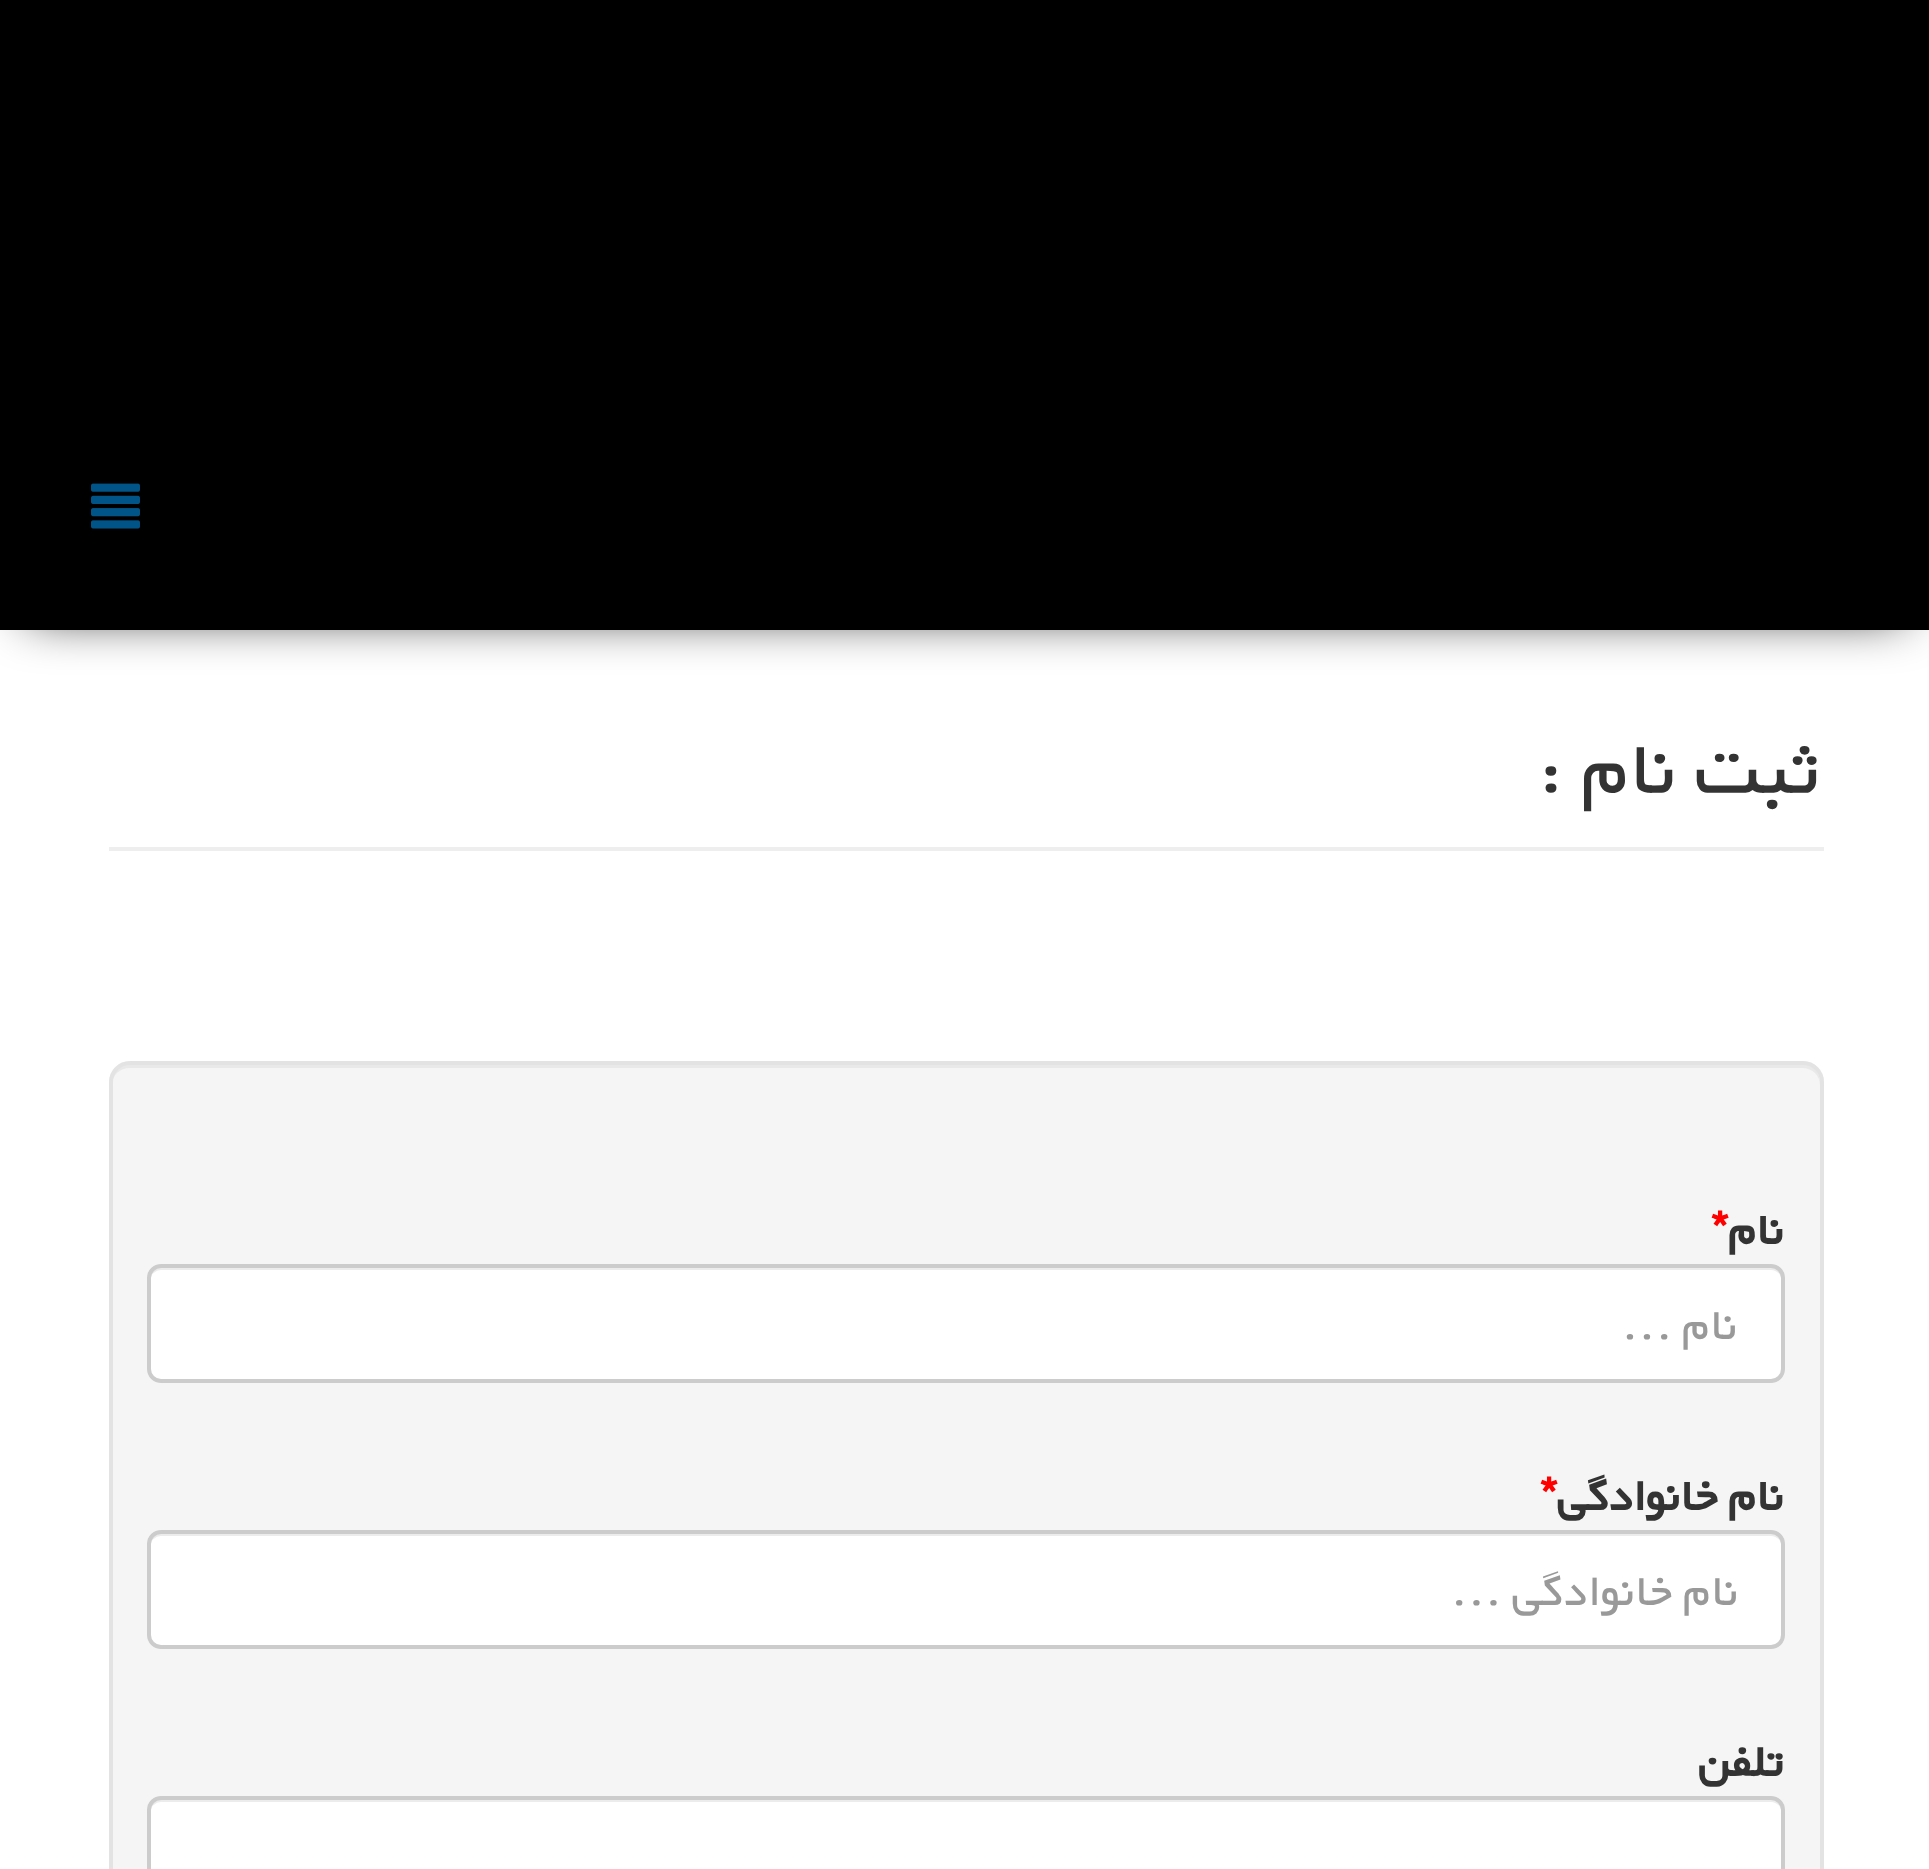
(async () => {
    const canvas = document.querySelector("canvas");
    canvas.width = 1929;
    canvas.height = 1869;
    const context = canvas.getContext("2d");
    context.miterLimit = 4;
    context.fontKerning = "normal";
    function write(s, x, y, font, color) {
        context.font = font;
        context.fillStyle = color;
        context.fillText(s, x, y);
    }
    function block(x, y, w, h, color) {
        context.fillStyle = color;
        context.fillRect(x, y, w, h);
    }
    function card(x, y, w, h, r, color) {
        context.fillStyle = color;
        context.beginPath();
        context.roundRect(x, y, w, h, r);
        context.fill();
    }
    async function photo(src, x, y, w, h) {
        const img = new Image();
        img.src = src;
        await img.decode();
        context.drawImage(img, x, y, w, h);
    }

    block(0, 0, 1929, 1869, "rgb(255, 255, 255)");
    block(0, 0, 1929, 350, "rgb(0, 0, 0)");
    context.filter = "blur(26px)";
    context.beginPath();
    context.rect(28, 389, 1876, 224);
    context.fill();
    context.filter = "none";
    block(0, 350, 1929, 280, "rgb(0, 0, 0)");
    await photo("media/1.png", 91, 483, 49, 46);
    block(109, 847, 1715, 4, "rgb(238, 238, 238)");
    context.direction = "rtl";
    write("ثبت نام :", 1823, 798, "84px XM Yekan", "rgb(51, 51, 51)");
    card(109, 1061, 1715, 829, 21, "rgb(245, 245, 245)");
    context.fillStyle = "rgb(233, 233, 233)";
    context.beginPath();
    context.moveTo(130, 1068);
    context.lineTo(1802, 1068);
    context.bezierCurveTo(1812, 1068, 1820, 1075, 1820, 1085);
    context.lineTo(1820, 1082);
    context.bezierCurveTo(1820, 1072, 1812, 1064, 1802, 1064);
    context.lineTo(130, 1064);
    context.bezierCurveTo(120, 1064, 112, 1072, 112, 1082);
    context.lineTo(112, 1085);
    context.bezierCurveTo(112, 1075, 120, 1068, 130, 1068);
    context.closePath();
    context.fill();
    context.beginPath();
    context.roundRect(111, 1063, 1711, 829, 19);
    context.strokeStyle = "rgb(227, 227, 227)";
    context.lineWidth = 4;
    context.stroke();
    write("نام", 1785, 1247, "bold 49px XM Yekan", "rgb(51, 51, 51)");
    context.direction = "ltr";
    write("*", 1710, 1247, "bold 49px XM Yekan", "rgb(255, 0, 0)");
    card(147, 1264, 1638, 119, 14, "rgb(255, 255, 255)");
    context.fillStyle = "rgb(236, 236, 236)";
    context.beginPath();
    context.moveTo(161, 1270);
    context.lineTo(1771, 1270);
    context.bezierCurveTo(1777, 1270, 1782, 1275, 1782, 1281);
    context.lineTo(1782, 1278);
    context.bezierCurveTo(1782, 1272, 1777, 1267, 1771, 1267);
    context.lineTo(162, 1267);
    context.bezierCurveTo(157, 1267, 152, 1271, 151, 1276);
    context.bezierCurveTo(153, 1273, 157, 1270, 161, 1270);
    context.closePath();
    context.fill();
    context.beginPath();
    context.roundRect(149, 1266, 1634, 115, 12);
    context.strokeStyle = "rgb(204, 204, 204)";
    context.stroke();
    context.direction = "rtl";
    write("نام ...", 1739, 1342, "49px XM Yekan", "rgb(153, 153, 153)");
    write("نام خانوادگی", 1785, 1513, "bold 49px XM Yekan", "rgb(51, 51, 51)");
    context.direction = "ltr";
    write("*", 1539, 1513, "bold 49px XM Yekan", "rgb(255, 0, 0)");
    card(147, 1530, 1638, 119, 14, "rgb(255, 255, 255)");
    context.fillStyle = "rgb(236, 236, 236)";
    context.beginPath();
    context.moveTo(161, 1536);
    context.lineTo(1771, 1536);
    context.bezierCurveTo(1777, 1536, 1782, 1541, 1782, 1547);
    context.lineTo(1782, 1544);
    context.bezierCurveTo(1782, 1538, 1777, 1533, 1771, 1533);
    context.lineTo(162, 1533);
    context.bezierCurveTo(157, 1533, 152, 1537, 151, 1542);
    context.bezierCurveTo(153, 1539, 157, 1536, 161, 1536);
    context.closePath();
    context.fill();
    context.beginPath();
    context.roundRect(149, 1532, 1634, 115, 12);
    context.stroke();
    context.direction = "rtl";
    write("نام خانوادگی ...", 1740, 1608, "49px XM Yekan", "rgb(153, 153, 153)");
    write("تلفن", 1785, 1779, "bold 49px XM Yekan", "rgb(51, 51, 51)");
    card(147, 1796, 1638, 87, 14, "rgb(255, 255, 255)");
    context.fillStyle = "rgb(236, 236, 236)";
    context.beginPath();
    context.moveTo(161, 1802);
    context.lineTo(1771, 1802);
    context.bezierCurveTo(1777, 1802, 1782, 1807, 1782, 1813);
    context.lineTo(1782, 1810);
    context.bezierCurveTo(1782, 1804, 1777, 1799, 1771, 1799);
    context.lineTo(162, 1799);
    context.bezierCurveTo(157, 1799, 152, 1803, 151, 1808);
    context.bezierCurveTo(153, 1805, 157, 1802, 161, 1802);
    context.closePath();
    context.fill();
    context.beginPath();
    context.roundRect(149, 1798, 1634, 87, 12);
    context.stroke();
})();
